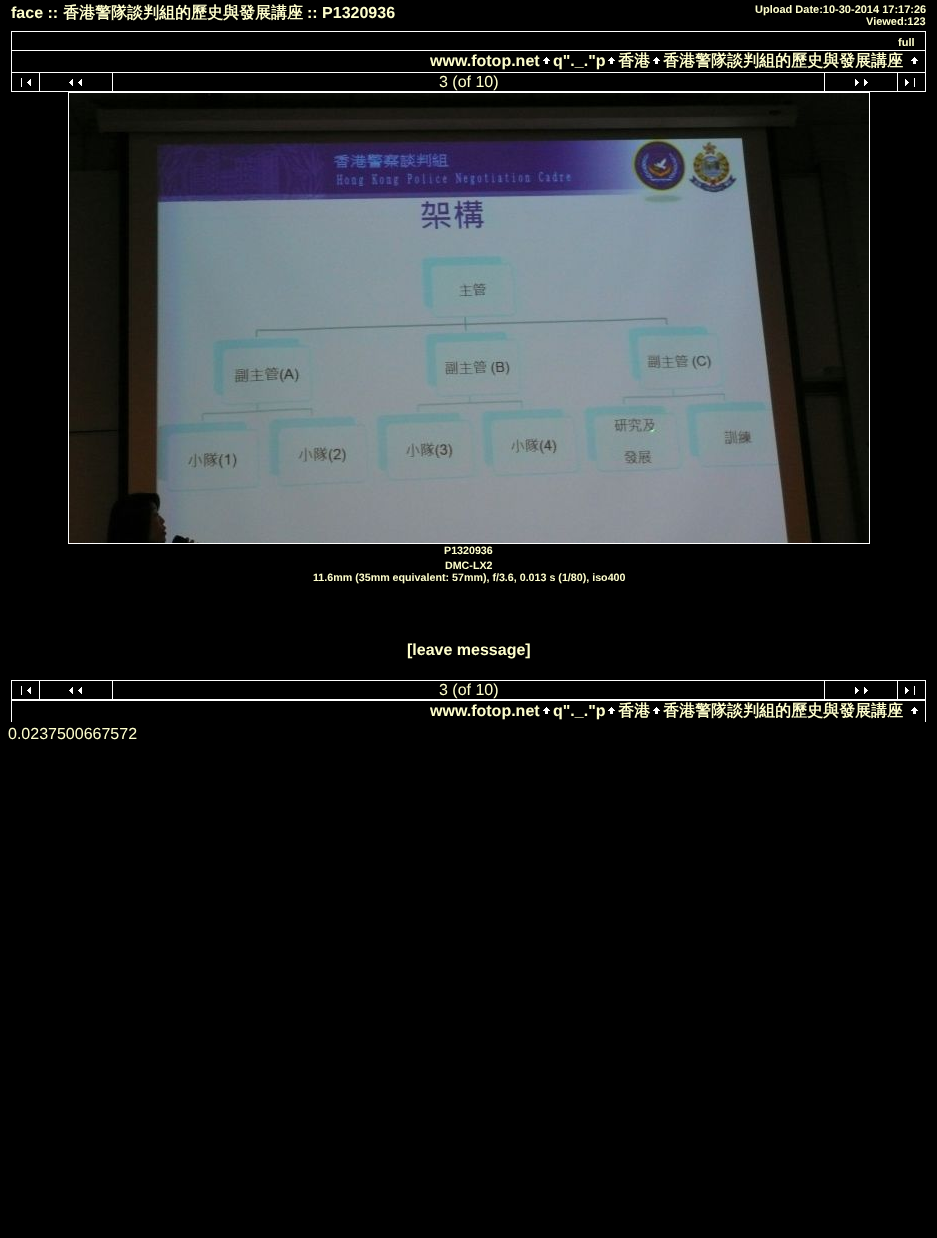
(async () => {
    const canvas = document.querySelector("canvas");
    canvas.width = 937;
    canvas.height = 1238;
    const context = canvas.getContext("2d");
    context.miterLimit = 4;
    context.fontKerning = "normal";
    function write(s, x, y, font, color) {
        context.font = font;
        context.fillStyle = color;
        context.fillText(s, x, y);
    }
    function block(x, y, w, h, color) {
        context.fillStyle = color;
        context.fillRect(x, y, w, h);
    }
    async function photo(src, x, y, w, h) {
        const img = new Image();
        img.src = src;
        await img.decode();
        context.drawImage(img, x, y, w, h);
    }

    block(0, 0, 937, 1238, "rgb(0, 0, 0)");
    write("face ::", 11, 18, "bold 16px Liberation Sans", "rgb(255, 255, 204)");
    write("香港警隊談判組的歷史與發展講座", 63, 18, "bold 16px WenQuanYi Zen Hei", "rgb(255, 255, 204)");
    write(":: P1320936", 307, 18, "bold 16px Liberation Sans", "rgb(255, 255, 204)");
    write("Upload Date:10-30-2014 17:17:26", 755, 13, "bold 11px Liberation Sans", "rgb(255, 255, 204)");
    write("Viewed:123", 866, 25, "bold 11px Liberation Sans", "rgb(255, 255, 204)");
    block(11, 31, 915, 1, "rgb(255, 255, 255)");
    block(11, 32, 1, 18, "rgb(255, 255, 255)");
    write("full", 898, 46, "bold 11px Liberation Sans", "rgb(255, 255, 204)");
    block(925, 32, 1, 18, "rgb(255, 255, 255)");
    block(11, 50, 915, 1, "rgb(255, 255, 255)");
    block(11, 51, 1, 21, "rgb(255, 255, 255)");
    write("www.fotop.net", 430, 66, "bold 16px Liberation Sans", "rgb(255, 255, 204)");
    await photo("media/1.png", 543, 57, 7, 7);
    write("q\"._.\"p", 553, 66, "bold 16px Liberation Sans", "rgb(255, 255, 204)");
    await photo("media/1.png", 608, 57, 7, 7);
    write("香港", 618, 66, "bold 16px WenQuanYi Zen Hei", "rgb(255, 255, 204)");
    await photo("media/1.png", 653, 57, 7, 7);
    write("香港警隊談判組的歷史與發展講座", 663, 66, "bold 16px WenQuanYi Zen Hei", "rgb(255, 255, 204)");
    await photo("media/1.png", 911, 57, 7, 7);
    block(925, 51, 1, 21, "rgb(255, 255, 255)");
    block(11, 72, 915, 1, "rgb(255, 255, 255)");
    block(11, 73, 1, 18, "rgb(255, 255, 255)");
    await photo("media/2.png", 21, 78, 10, 9);
    block(39, 73, 1, 18, "rgb(255, 255, 255)");
    await photo("media/3.png", 69, 79, 13, 7);
    block(112, 73, 1, 18, "rgb(255, 255, 255)");
    write("3 (of 10)", 439, 87, "16px Liberation Sans", "rgb(255, 255, 204)");
    block(824, 73, 1, 18, "rgb(255, 255, 255)");
    await photo("media/4.png", 855, 79, 13, 7);
    block(897, 73, 1, 18, "rgb(255, 255, 255)");
    await photo("media/5.png", 905, 78, 10, 9);
    block(925, 73, 1, 18, "rgb(255, 255, 255)");
    block(11, 91, 915, 1, "rgb(255, 255, 255)");
    block(68, 92, 802, 1, "rgb(255, 255, 255)");
    block(68, 93, 1, 450, "rgb(255, 255, 255)");
    await photo("media/6.png", 69, 93, 800, 450);
    block(869, 93, 1, 450, "rgb(255, 255, 255)");
    block(68, 543, 802, 1, "rgb(255, 255, 255)");
    write("P1320936", 444, 554, "bold 10.7px Liberation Sans", "rgb(255, 255, 204)");
    write("DMC-LX2", 445, 569, "bold 10.7px Liberation Sans", "rgb(255, 255, 204)");
    write("11.6mm (35mm equivalent: 57mm), f/3.6, 0.013 s (1/80), iso400", 313, 581, "bold 10.7px Liberation Sans", "rgb(255, 255, 204)");
    write("[leave message]", 407, 655, "bold 16px Liberation Sans", "rgb(255, 255, 204)");
    block(11, 680, 915, 1, "rgb(255, 255, 255)");
    block(11, 681, 1, 18, "rgb(255, 255, 255)");
    await photo("media/2.png", 21, 686, 10, 9);
    block(39, 681, 1, 18, "rgb(255, 255, 255)");
    await photo("media/3.png", 69, 687, 13, 7);
    block(112, 681, 1, 18, "rgb(255, 255, 255)");
    write("3 (of 10)", 439, 695, "16px Liberation Sans", "rgb(255, 255, 204)");
    block(824, 681, 1, 18, "rgb(255, 255, 255)");
    await photo("media/4.png", 855, 687, 13, 7);
    block(897, 681, 1, 18, "rgb(255, 255, 255)");
    await photo("media/5.png", 905, 686, 10, 9);
    block(925, 681, 1, 18, "rgb(255, 255, 255)");
    block(11, 699, 915, 2, "rgb(255, 255, 255)");
    block(11, 701, 1, 21, "rgb(255, 255, 255)");
    write("www.fotop.net", 430, 716, "bold 16px Liberation Sans", "rgb(255, 255, 204)");
    await photo("media/1.png", 543, 707, 7, 7);
    write("q\"._.\"p", 553, 716, "bold 16px Liberation Sans", "rgb(255, 255, 204)");
    await photo("media/1.png", 608, 707, 7, 7);
    write("香港", 618, 716, "bold 16px WenQuanYi Zen Hei", "rgb(255, 255, 204)");
    await photo("media/1.png", 653, 707, 7, 7);
    write("香港警隊談判組的歷史與發展講座", 663, 716, "bold 16px WenQuanYi Zen Hei", "rgb(255, 255, 204)");
    await photo("media/1.png", 911, 707, 7, 7);
    block(925, 701, 1, 21, "rgb(255, 255, 255)");
    write("0.0237500667572", 8, 739, "16px Liberation Sans", "rgb(255, 255, 204)");
})();
